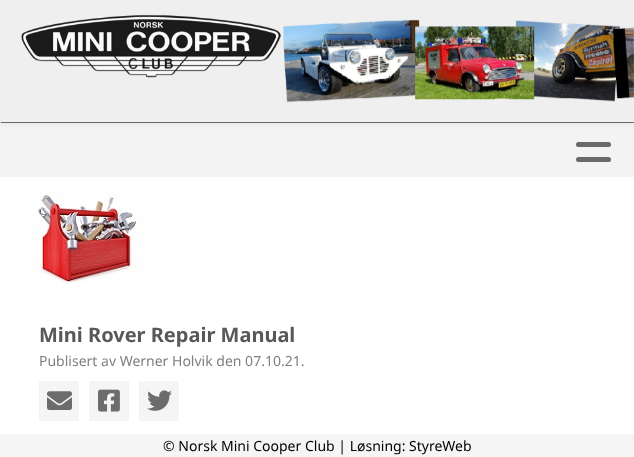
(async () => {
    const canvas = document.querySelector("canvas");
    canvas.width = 634;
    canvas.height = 457;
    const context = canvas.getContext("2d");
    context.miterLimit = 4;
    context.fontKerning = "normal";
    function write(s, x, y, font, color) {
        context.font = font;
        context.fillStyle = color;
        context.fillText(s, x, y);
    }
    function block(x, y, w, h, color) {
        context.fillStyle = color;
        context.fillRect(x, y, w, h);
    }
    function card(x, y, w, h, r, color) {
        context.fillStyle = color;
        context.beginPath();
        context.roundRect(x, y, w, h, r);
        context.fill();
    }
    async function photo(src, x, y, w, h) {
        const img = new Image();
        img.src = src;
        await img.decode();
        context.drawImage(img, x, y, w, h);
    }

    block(0, 0, 634, 457, "rgb(255, 255, 255)");
    await photo("media/1.png", 0, 0, 634, 127);
    block(0, 127, 634, 50, "rgb(243, 243, 243)");
    card(576, 142, 35, 5, 2.5, "rgb(105, 105, 105)");
    card(576, 157, 35, 5, 2.5, "rgb(105, 105, 105)");
    await photo("media/2.png", 31, 192, 112, 92);
    write("Mini Rover Repair Manual", 39, 342, "bold 20px Noto Sans", "rgb(88, 88, 88)");
    write("Publisert av Werner Holvik den 07.10.21.", 39, 366, "14px Noto Sans", "rgb(128, 128, 128)");
    block(39, 381, 40, 40, "rgb(245, 245, 245)");
    await photo("media/3.png", 47, 391, 25, 19);
    block(89, 381, 40, 40, "rgb(245, 245, 245)");
    await photo("media/4.png", 98, 389, 22, 23);
    block(139, 381, 40, 40, "rgb(245, 245, 245)");
    await photo("media/5.png", 147, 390, 25, 21);
    block(0, 434, 634, 23, "rgb(245, 245, 245)");
    write("© Norsk Mini Cooper Club | Løsning: StyreWeb", 163, 451, "14px Noto Sans", "rgb(0, 0, 0)");
})();
